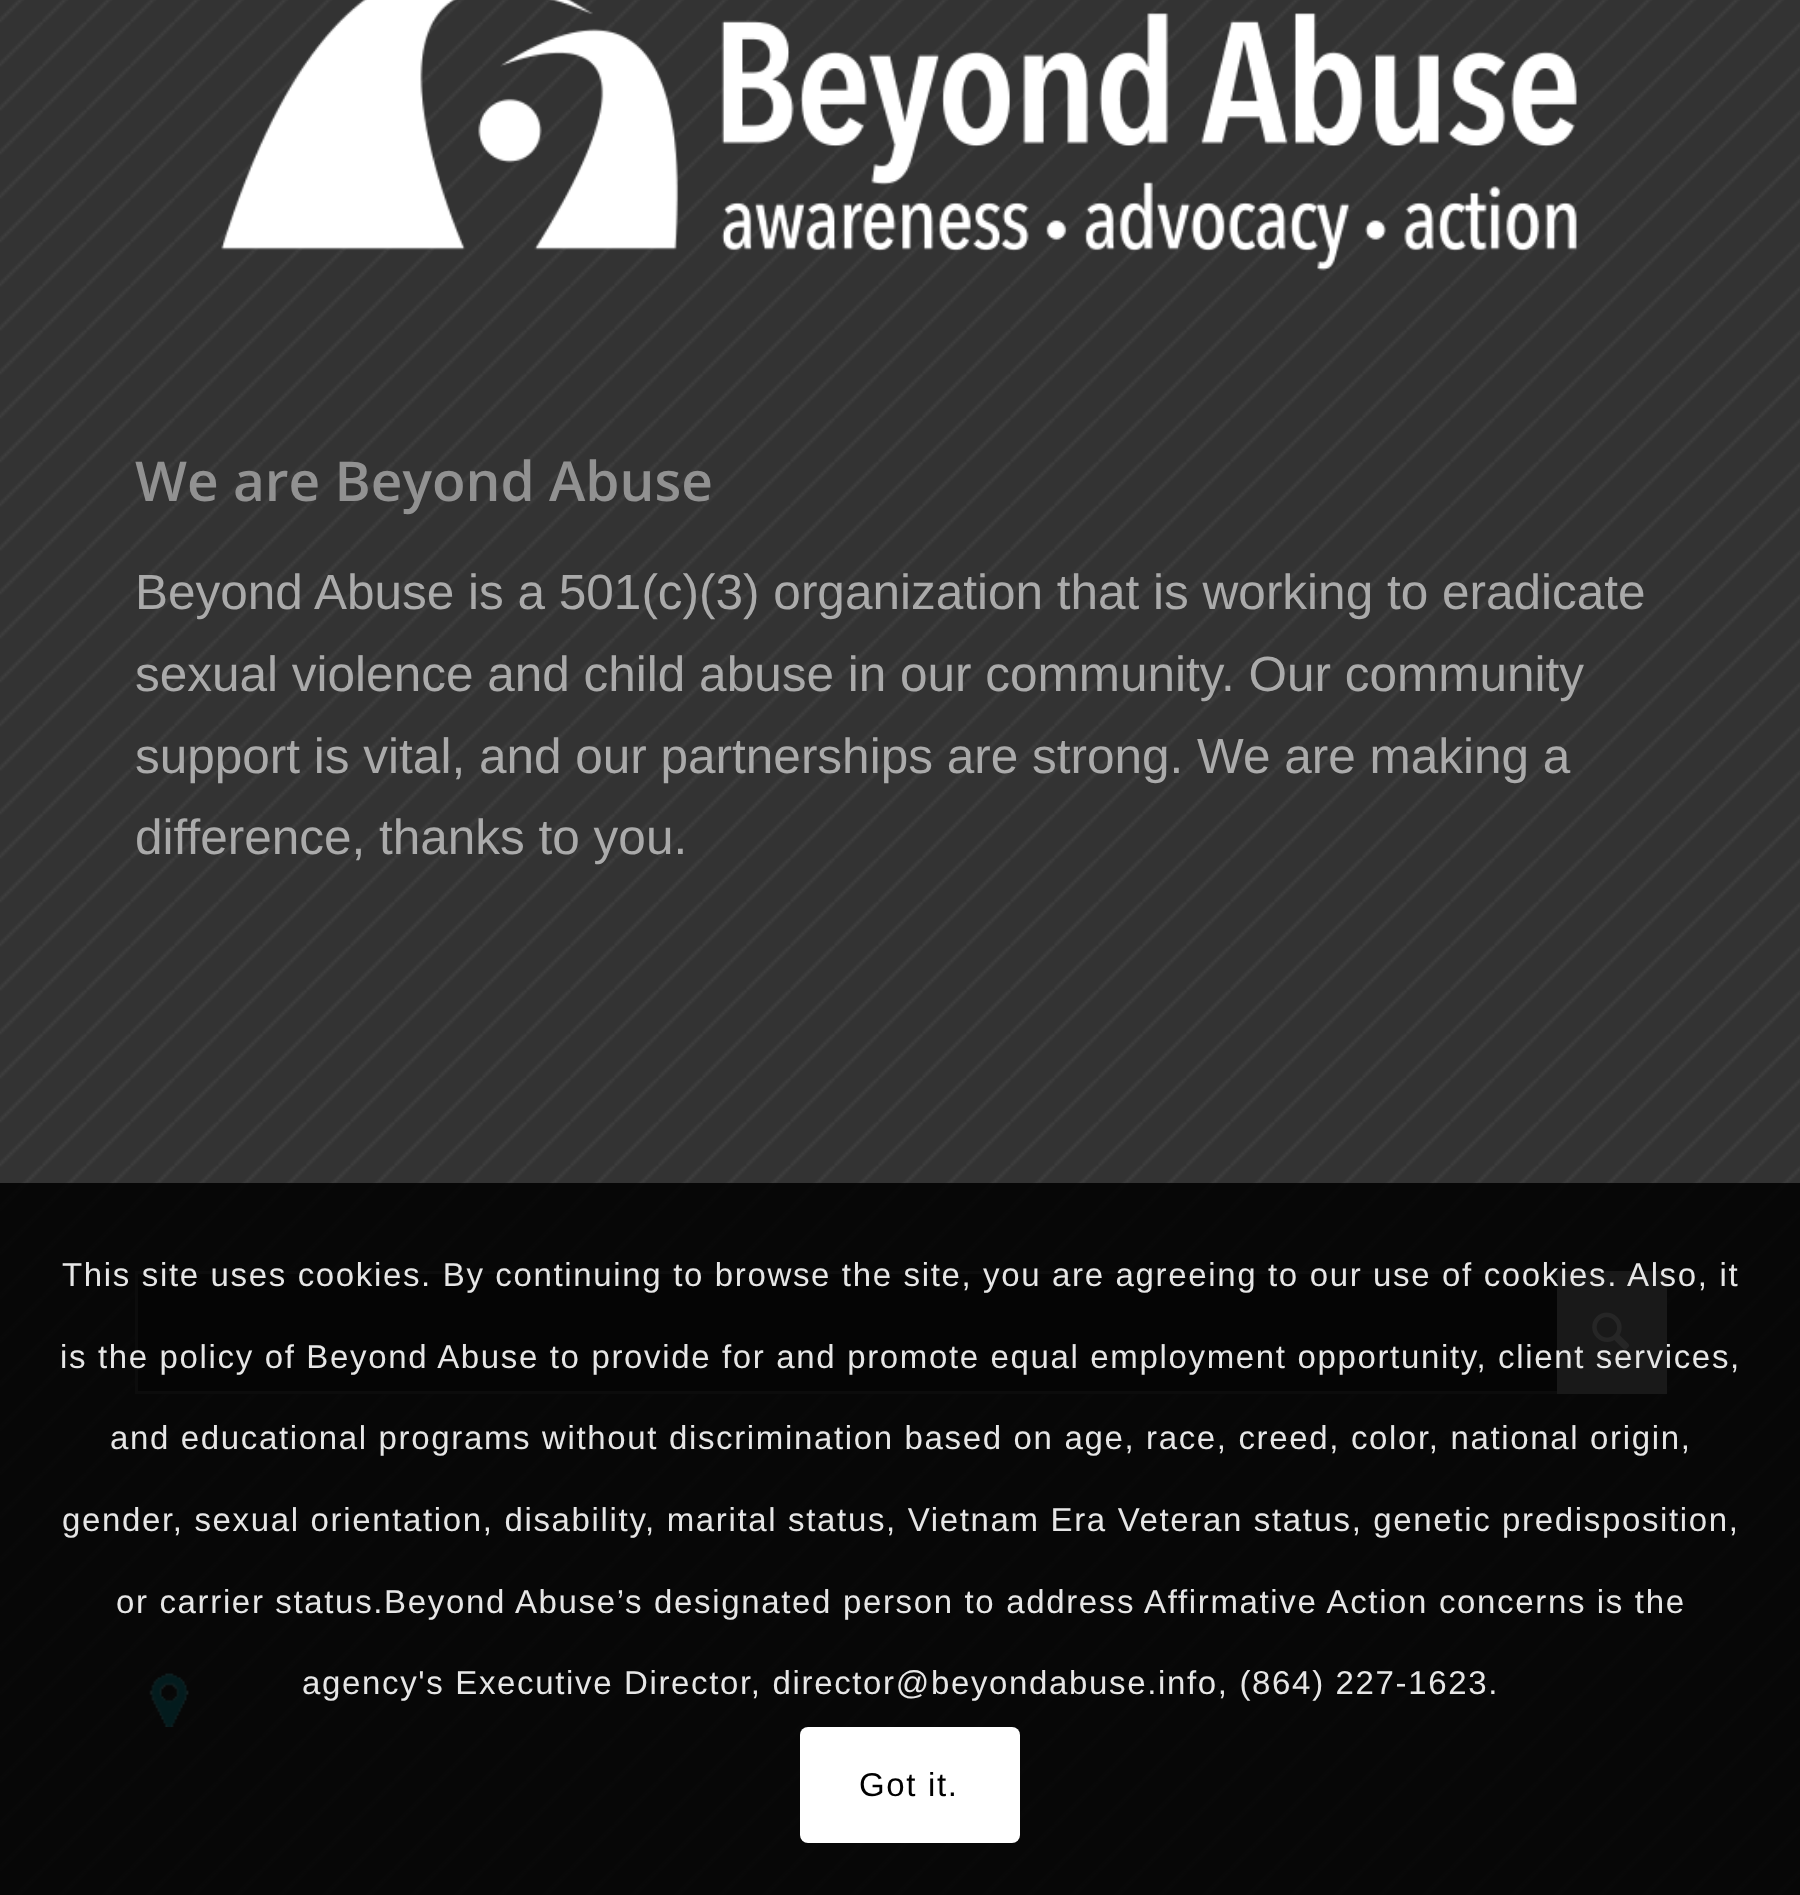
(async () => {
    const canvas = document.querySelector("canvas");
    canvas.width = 1800;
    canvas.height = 1895;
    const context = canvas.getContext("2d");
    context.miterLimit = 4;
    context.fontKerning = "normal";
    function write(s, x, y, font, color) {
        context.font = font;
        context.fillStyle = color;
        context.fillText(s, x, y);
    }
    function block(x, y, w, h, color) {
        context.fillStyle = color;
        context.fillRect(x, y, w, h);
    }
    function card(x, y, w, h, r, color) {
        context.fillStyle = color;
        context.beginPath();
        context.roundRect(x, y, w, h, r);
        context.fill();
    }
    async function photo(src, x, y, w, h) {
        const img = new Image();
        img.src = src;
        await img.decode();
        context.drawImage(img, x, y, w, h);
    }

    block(0, 0, 1800, 1895, "rgb(51, 51, 51)");
    await photo("media/1.png", 0, 0, 1800, 1895);
    await photo("media/2.png", 221, 0, 1356, 271);
    write("We are Beyond Abuse", 135, 501, "600 55px Open Sans", "rgb(145, 145, 145)");
    write("Beyond Abuse is a 501(c)(3) organization that is working to eradicate", 135, 609, "49.5px Liberation Sans", "rgb(170, 170, 170)");
    write("sexual violence and child abuse in our community. Our community", 135, 691, "49.5px Liberation Sans", "rgb(170, 170, 170)");
    write("support is vital, and our partnerships are strong. We are making a", 135, 773, "49.5px Liberation Sans", "rgb(170, 170, 170)");
    write("difference, thanks to you.", 135, 854, "49.5px Liberation Sans", "rgb(170, 170, 170)");
    block(138, 1274, 1419, 117, "rgb(34, 34, 34)");
    context.strokeStyle = "rgb(85, 85, 85)";
    context.lineWidth = 3;
    context.strokeRect(136.5, 1272.5, 1529, 120);
    block(1557, 1271, 110, 123, "rgb(170, 170, 170)");
    await photo("media/3.png", 1592, 1312, 38, 38);
    await photo("media/4.png", 149, 1673, 40, 54);
    block(0, 1183, 1800, 712, "rgba(0, 0, 0, 0.85)");
    context.letterSpacing = "1.65px";
    write("This site uses cookies. By continuing to browse the site, you are agreeing to our use of cookies. Also, it", 62, 1286, "33px Liberation Sans", "rgb(230, 230, 230)");
    write("is the policy of Beyond Abuse to provide for and promote equal employment opportunity, client services,", 60, 1368, "33px Liberation Sans", "rgb(230, 230, 230)");
    write("and educational programs without discrimination based on age, race, creed, color, national origin,", 110, 1449, "33px Liberation Sans", "rgb(230, 230, 230)");
    write("gender, sexual orientation, disability, marital status, Vietnam Era Veteran status, genetic predisposition,", 62, 1531, "33px Liberation Sans", "rgb(230, 230, 230)");
    write("or carrier status.Beyond Abuse’s designated person to address Affirmative Action concerns is the", 116, 1613, "33px Liberation Sans", "rgb(230, 230, 230)");
    write("agency's Executive Director, director@beyondabuse.info, (864) 227-1623.", 302, 1694, "33px Liberation Sans", "rgb(230, 230, 230)");
    card(800, 1727, 220, 116, 8, "rgb(255, 255, 255)");
    write("Got it.", 859, 1796, "33px Liberation Sans", "rgb(0, 0, 0)");
})();
